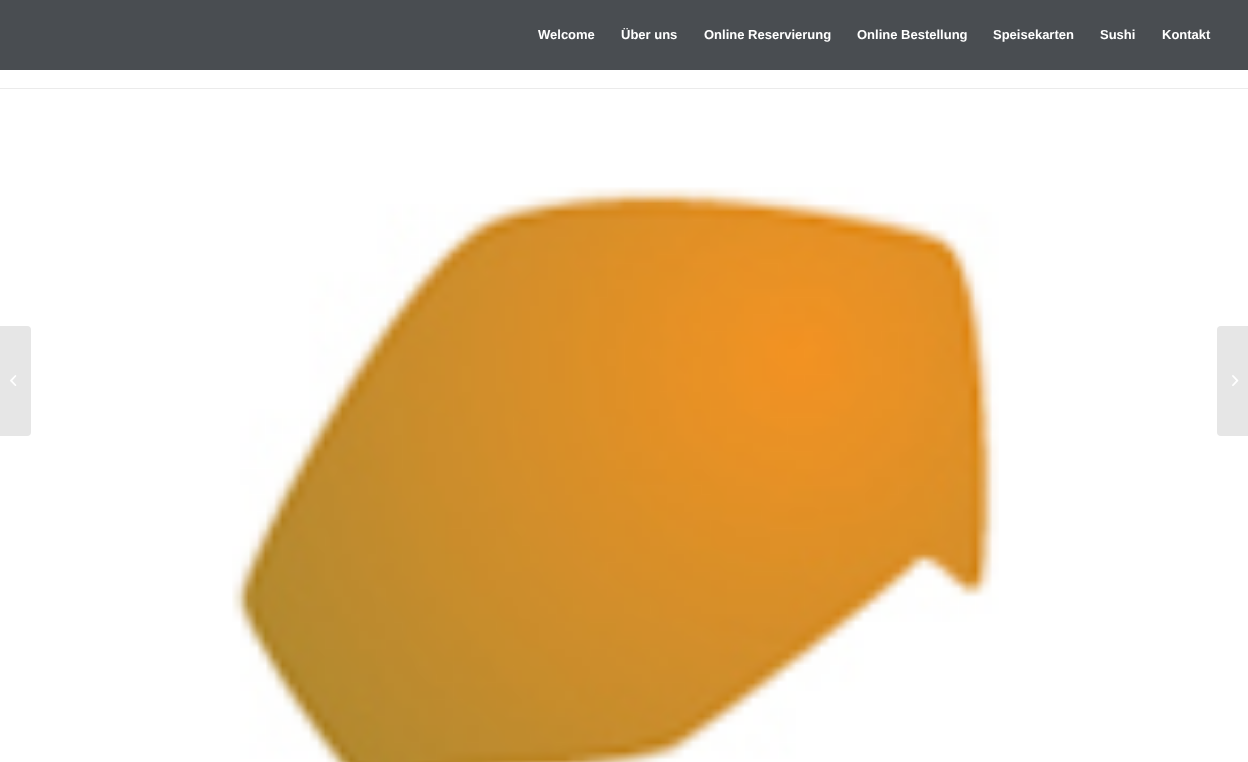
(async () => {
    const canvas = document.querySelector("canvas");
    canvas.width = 1248;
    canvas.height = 762;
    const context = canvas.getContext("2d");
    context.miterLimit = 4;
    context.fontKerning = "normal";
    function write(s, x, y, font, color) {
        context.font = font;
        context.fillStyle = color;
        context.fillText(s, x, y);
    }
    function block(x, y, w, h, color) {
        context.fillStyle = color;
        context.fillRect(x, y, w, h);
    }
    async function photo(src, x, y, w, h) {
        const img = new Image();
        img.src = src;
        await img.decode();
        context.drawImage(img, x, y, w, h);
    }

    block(0, 0, 1248, 762, "rgb(255, 255, 255)");
    block(0, 0, 1248, 70, "rgb(73, 77, 81)");
    write("Welcome", 538, 39, "bold 13px Liberation Sans", "rgb(255, 255, 255)");
    write("Über uns", 621, 39, "bold 13px Liberation Sans", "rgb(255, 255, 255)");
    write("Online Reservierung", 704, 39, "bold 13px Liberation Sans", "rgb(255, 255, 255)");
    write("Online Bestellung", 857, 39, "bold 13px Liberation Sans", "rgb(255, 255, 255)");
    write("Speisekarten", 993, 39, "bold 13px Liberation Sans", "rgb(255, 255, 255)");
    write("Sushi", 1100, 39, "bold 13px Liberation Sans", "rgb(255, 255, 255)");
    write("Kontakt", 1162, 39, "bold 13px Liberation Sans", "rgb(255, 255, 255)");
    block(0, 88, 1248, 1, "rgb(235, 235, 235)");
    await photo("media/1.png", 232, 187, 767, 575);
    context.fillStyle = "rgb(230, 230, 230)";
    context.beginPath();
    context.roundRect(0, 326, 31, 110, [0, 4, 4, 0]);
    context.fill();
    await photo("media/2.png", 10, 375, 7, 11);
    context.beginPath();
    context.roundRect(1217, 326, 31, 110, [4, 0, 0, 4]);
    context.fill();
    await photo("media/3.png", 1232, 375, 7, 11);
})();
